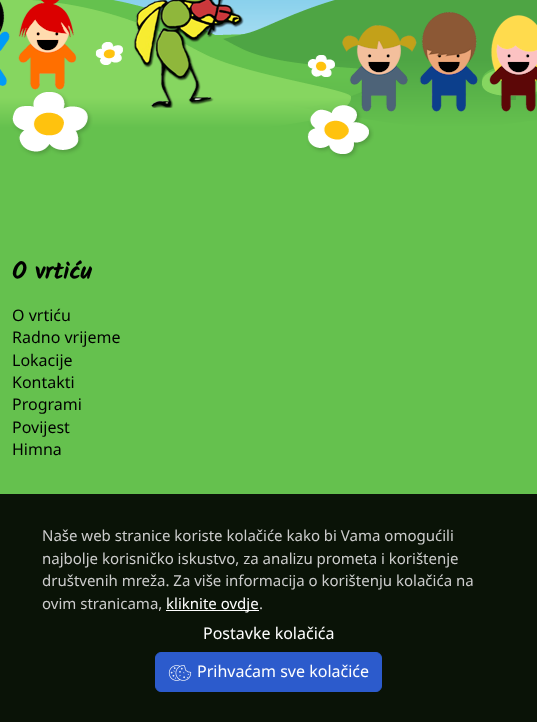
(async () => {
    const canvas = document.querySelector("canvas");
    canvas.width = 537;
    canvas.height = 722;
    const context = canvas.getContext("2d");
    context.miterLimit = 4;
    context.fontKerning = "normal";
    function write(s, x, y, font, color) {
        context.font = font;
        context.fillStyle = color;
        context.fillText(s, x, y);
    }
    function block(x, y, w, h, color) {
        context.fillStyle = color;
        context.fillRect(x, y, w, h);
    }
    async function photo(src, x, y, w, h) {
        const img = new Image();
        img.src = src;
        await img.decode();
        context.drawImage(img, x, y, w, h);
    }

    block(0, 0, 537, 722, "rgb(255, 255, 255)");
    await photo("media/1.png", 113, 0, 222, 35);
    await photo("media/2.png", 0, 0, 537, 227);
    block(0, 227, 537, 495, "rgb(101, 193, 78)");
    context.letterSpacing = "-0.5px";
    write("O vrtiću", 12, 279, "bold 24px Kalam", "rgb(0, 0, 0)");
    context.letterSpacing = "0px";
    write("O vrtiću", 12, 321, "16px Noto Sans", "rgb(0, 0, 0)");
    write("Radno vrijeme", 12, 343, "16px Noto Sans", "rgb(0, 0, 0)");
    write("Lokacije", 12, 366, "16px Noto Sans", "rgb(0, 0, 0)");
    write("Kontakti", 12, 388, "16px Noto Sans", "rgb(0, 0, 0)");
    write("Programi", 12, 410, "16px Noto Sans", "rgb(0, 0, 0)");
    write("Povijest", 12, 433, "16px Noto Sans", "rgb(0, 0, 0)");
    write("Himna", 12, 455, "16px Noto Sans", "rgb(0, 0, 0)");
    block(0, 494, 537, 228, "rgba(0, 0, 0, 0.9)");
    write("Naše web stranice koriste kolačiće kako bi Vama omogućili", 42, 541, "15px Noto Sans", "rgb(204, 204, 204)");
    write("najbolje korisničko iskustvo, za analizu prometa i korištenje", 42, 564, "15px Noto Sans", "rgb(204, 204, 204)");
    write("društvenih mreža. Za više informacija o korištenju kolačića na", 42, 586, "15px Noto Sans", "rgb(204, 204, 204)");
    write("ovim stranicama,", 42, 609, "15px Noto Sans", "rgb(204, 204, 204)");
    block(166, 610, 93, 1, "rgb(255, 255, 255)");
    write("kliknite ovdje", 166, 609, "15px Noto Sans", "rgb(255, 255, 255)");
    write(".", 259, 609, "15px Noto Sans", "rgb(204, 204, 204)");
    write("Postavke kolačića", 203, 639, "16px Noto Sans", "rgb(255, 255, 255)");
    context.fillStyle = "rgb(44, 91, 204)";
    context.beginPath();
    context.roundRect(155.5, 652.5, 226, 39, 5.5);
    context.fill();
    context.strokeStyle = "rgb(44, 91, 204)";
    context.stroke();
    await photo("media/3.png", 168, 665, 24, 16);
    write("Prihvaćam sve kolačiće", 197, 677, "16px Noto Sans", "rgb(255, 255, 255)");
})();
